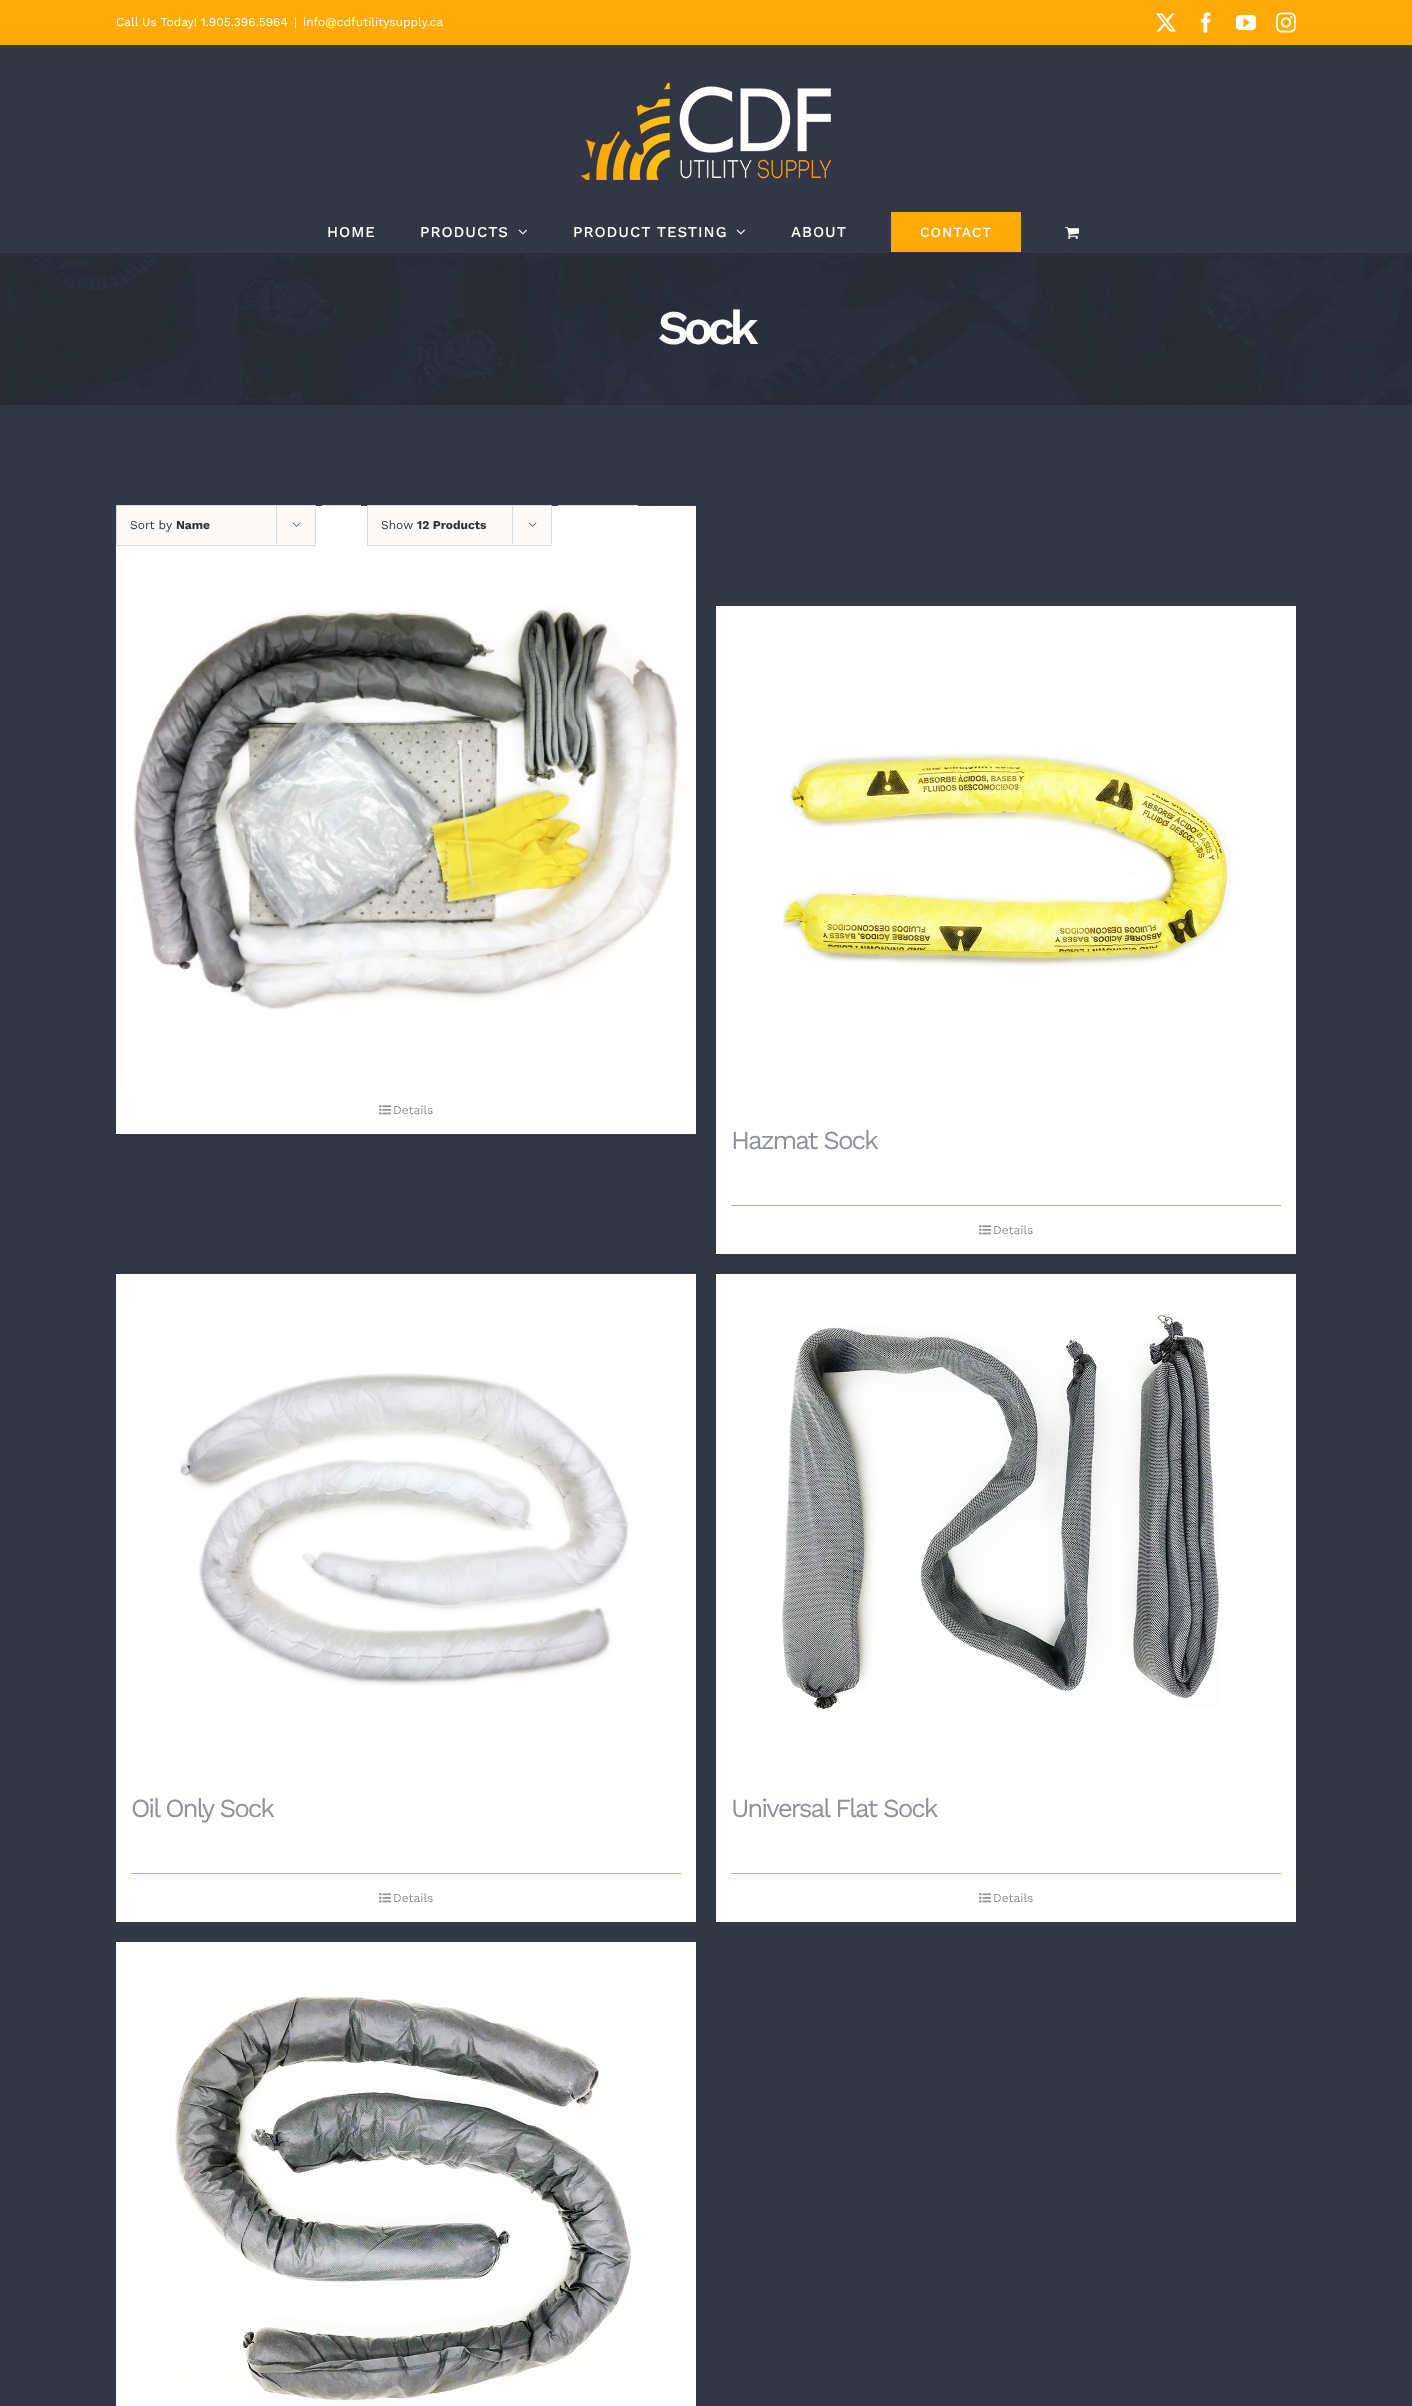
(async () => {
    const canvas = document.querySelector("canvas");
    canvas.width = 1412;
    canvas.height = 2406;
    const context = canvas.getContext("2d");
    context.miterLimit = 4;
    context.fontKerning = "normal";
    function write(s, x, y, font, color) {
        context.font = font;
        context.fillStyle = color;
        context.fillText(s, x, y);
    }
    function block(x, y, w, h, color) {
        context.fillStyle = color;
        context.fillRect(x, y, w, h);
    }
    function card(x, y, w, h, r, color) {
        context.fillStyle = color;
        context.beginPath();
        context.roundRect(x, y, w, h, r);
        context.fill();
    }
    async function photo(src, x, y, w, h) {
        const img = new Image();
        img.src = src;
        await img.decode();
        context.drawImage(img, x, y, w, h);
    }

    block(0, 0, 1412, 2406, "rgb(51, 54, 69)");
    block(0, 0, 1412, 45, "rgb(255, 170, 6)");
    write("Call Us Today! 1.905.396.5964", 116, 26, "12px Work Sans", "rgb(255, 255, 255)");
    write("|", 294, 26, "12px Work Sans", "rgb(255, 255, 255)");
    write("info@cdfutilitysupply.ca", 303, 26, "12px Work Sans", "rgb(255, 255, 255)");
    await photo("media/1.png", 1156, 13, 20, 19);
    await photo("media/2.png", 1201, 12, 10, 21);
    await photo("media/3.png", 1236, 15, 20, 15);
    await photo("media/4.png", 1276, 12, 20, 21);
    await photo("media/5.png", 581, 83, 250, 97);
    context.letterSpacing = "1px";
    write("HOME", 327, 237, "500 15px Work Sans", "rgb(255, 255, 255)");
    write("PRODUCTS", 420, 237, "500 15px Work Sans", "rgb(255, 255, 255)");
    await photo("media/6.png", 518, 229, 9, 6);
    write("PRODUCT TESTING", 573, 237, "500 15px Work Sans", "rgb(255, 255, 255)");
    await photo("media/6.png", 736, 229, 9, 6);
    write("ABOUT", 791, 237, "500 15px Work Sans", "rgb(255, 255, 255)");
    block(0, 253, 1412, 1, "rgb(41, 43, 55)");
    context.save();
    context.beginPath();
    context.rect(116, 212, 1180, 40);
    context.clip();
    card(891, 211, 130, 43, 2, "rgb(255, 170, 6)");
    context.restore();
    write("CONTACT", 920, 237, "500 14px Work Sans", "rgb(255, 255, 255)");
    await photo("media/7.png", 1065, 227, 14, 12);
    block(0, 254, 6, 150, "rgb(41, 43, 55)");
    await photo("media/8.png", 6, 254, 1406, 150);
    block(0, 404, 1412, 1, "rgb(41, 43, 55)");
    context.letterSpacing = "-5px";
    write("Sock", 658, 344, "600 48px Work Sans", "rgb(255, 255, 255)");
    context.strokeStyle = "rgb(219, 219, 219)";
    context.strokeRect(322.5, 505.5, 38, 40);
    context.strokeRect(558.5, 505.5, 79, 40);
    await photo("media/10.png", 116, 506, 580, 580);
    context.fillStyle = "rgb(251, 250, 249)";
    context.beginPath();
    context.rect(116.5, 505.5, 199, 40);
    context.fill();
    context.stroke();
    context.letterSpacing = "0px";
    write("Sort by", 130, 529, "12px Work Sans", "rgb(51, 51, 51)");
    write("Name", 176, 529, "bold 12px Work Sans", "rgb(51, 51, 51)");
    block(276, 505, 1, 39, "rgb(219, 219, 219)");
    await photo("media/9.png", 292, 522, 9, 5);
    context.fillStyle = "rgb(251, 250, 249)";
    context.beginPath();
    context.rect(367.5, 505.5, 184, 40);
    context.fill();
    context.stroke();
    write("Show", 381, 529, "12px Work Sans", "rgb(51, 51, 51)");
    write("12 Products", 417, 529, "bold 12px Work Sans", "rgb(51, 51, 51)");
    block(512, 505, 1, 39, "rgb(219, 219, 219)");
    await photo("media/9.png", 528, 522, 9, 5);
    block(116, 1086, 580, 48, "rgb(255, 255, 255)");
    await photo("media/11.png", 379, 1105, 12, 10);
    write("Details", 393, 1114, "12px Work Sans", "rgb(143, 145, 155)");
    block(716, 606, 580, 648, "rgb(255, 255, 255)");
    await photo("media/12.png", 782, 753, 449, 214);
    context.letterSpacing = "-2px";
    write("Hazmat Sock", 731, 1149, "26px Work Sans", "rgb(143, 145, 155)");
    block(731, 1205, 550, 1, "rgb(255, 170, 6)");
    await photo("media/11.png", 979, 1225, 12, 10);
    context.letterSpacing = "0px";
    write("Details", 993, 1234, "12px Work Sans", "rgb(143, 145, 155)");
    block(116, 1274, 580, 648, "rgb(255, 255, 255)");
    await photo("media/13.png", 179, 1373, 450, 313);
    context.letterSpacing = "-2px";
    write("Oil Only Sock", 131, 1817, "26px Work Sans", "rgb(143, 145, 155)");
    block(131, 1873, 550, 1, "rgb(255, 170, 6)");
    await photo("media/11.png", 379, 1893, 12, 10);
    context.letterSpacing = "0px";
    write("Details", 393, 1902, "12px Work Sans", "rgb(143, 145, 155)");
    block(716, 1274, 580, 648, "rgb(255, 255, 255)");
    await photo("media/14.png", 782, 1314, 437, 395);
    context.letterSpacing = "-2px";
    write("Universal Flat Sock", 731, 1817, "26px Work Sans", "rgb(143, 145, 155)");
    block(731, 1873, 550, 1, "rgb(255, 170, 6)");
    await photo("media/11.png", 979, 1893, 12, 10);
    context.letterSpacing = "0px";
    write("Details", 993, 1902, "12px Work Sans", "rgb(143, 145, 155)");
    block(116, 1942, 580, 464, "rgb(255, 255, 255)");
    await photo("media/15.png", 175, 1996, 456, 406);
})();
